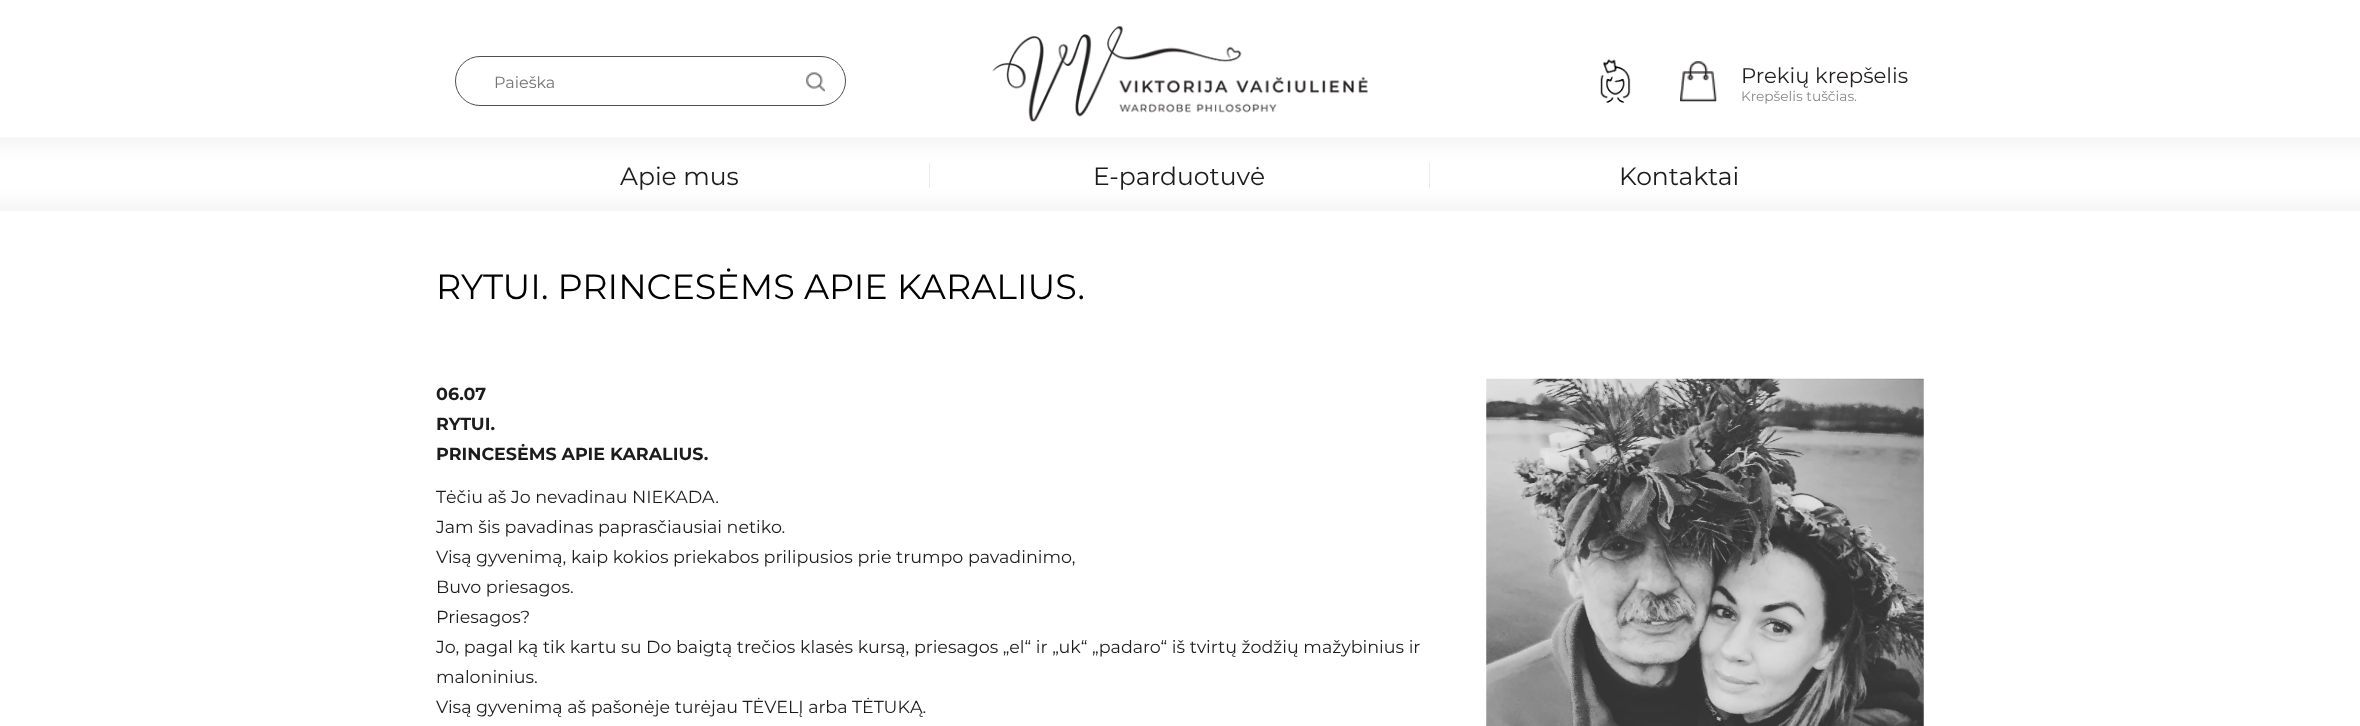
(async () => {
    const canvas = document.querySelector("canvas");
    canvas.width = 2360;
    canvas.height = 726;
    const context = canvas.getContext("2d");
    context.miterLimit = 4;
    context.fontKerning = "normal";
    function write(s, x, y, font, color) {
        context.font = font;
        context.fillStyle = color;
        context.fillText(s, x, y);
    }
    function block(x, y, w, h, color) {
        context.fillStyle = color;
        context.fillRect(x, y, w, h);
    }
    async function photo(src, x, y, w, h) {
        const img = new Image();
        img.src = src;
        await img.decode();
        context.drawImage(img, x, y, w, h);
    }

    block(0, 0, 2360, 726, "rgb(255, 255, 255)");
    await photo("media/1.png", 0, 137, 2360, 74);
    context.beginPath();
    context.roundRect(455.5, 56.5, 390, 49, 24.5);
    context.strokeStyle = "rgb(79, 79, 79)";
    context.stroke();
    write("Paieška", 494, 88, "16px Montserrat", "rgb(117, 117, 117)");
    await photo("media/2.png", 806, 72, 19, 20);
    await photo("media/3.png", 992, 26, 376, 96);
    await photo("media/4.png", 1600, 59, 31, 44);
    await photo("media/5.png", 1680, 61, 37, 41);
    write("Prekių krepšelis", 1741, 83, "21.25px Montserrat", "rgb(35, 31, 32)");
    write("Krepšelis tuščias.", 1741, 101, "13.75px Montserrat", "rgb(135, 138, 137)");
    write("Apie mus", 620, 185, "25px Montserrat", "rgb(28, 28, 28)");
    block(929, 163, 1, 25, "rgb(235, 235, 235)");
    write("E-parduotuvė", 1093, 185, "25px Montserrat", "rgb(28, 28, 28)");
    block(1429, 163, 1, 25, "rgb(235, 235, 235)");
    write("Kontaktai", 1619, 185, "25px Montserrat", "rgb(28, 28, 28)");
    write("RYTUI. PRINCESĖMS APIE KARALIUS.", 436, 299, "35px Montserrat", "rgb(0, 0, 0)");
    write("06.07", 436, 400, "bold 17.5px Montserrat", "rgb(28, 28, 28)");
    await photo("media/6.png", 1486, 378, 438, 348);
    write("RYTUI.", 436, 430, "bold 17.5px Montserrat", "rgb(28, 28, 28)");
    write("PRINCESĖMS APIE KARALIUS.", 436, 460, "bold 17.5px Montserrat", "rgb(28, 28, 28)");
    write("Tėčiu aš Jo nevadinau NIEKADA.", 436, 503, "17.5px Montserrat", "rgb(28, 28, 28)");
    write("Jam šis pavadinas paprasčiausiai netiko.", 436, 533, "17.5px Montserrat", "rgb(28, 28, 28)");
    write("Visą gyvenimą, kaip kokios priekabos prilipusios prie trumpo pavadinimo,", 436, 563, "17.5px Montserrat", "rgb(28, 28, 28)");
    write("Buvo priesagos.", 436, 593, "17.5px Montserrat", "rgb(28, 28, 28)");
    write("Priesagos?", 436, 623, "17.5px Montserrat", "rgb(28, 28, 28)");
    write("Jo, pagal ką tik kartu su Do baigtą trečios klasės kursą, priesagos „el“ ir „uk“ „padaro“ iš tvirtų žodžių mažybinius ir", 436, 653, "17.5px Montserrat", "rgb(28, 28, 28)");
    write("maloninius.", 436, 683, "17.5px Montserrat", "rgb(28, 28, 28)");
    write("Visą gyvenimą aš pašonėje turėjau TĖVELĮ arba TĖTUKĄ.", 436, 713, "17.5px Montserrat", "rgb(28, 28, 28)");
})();
